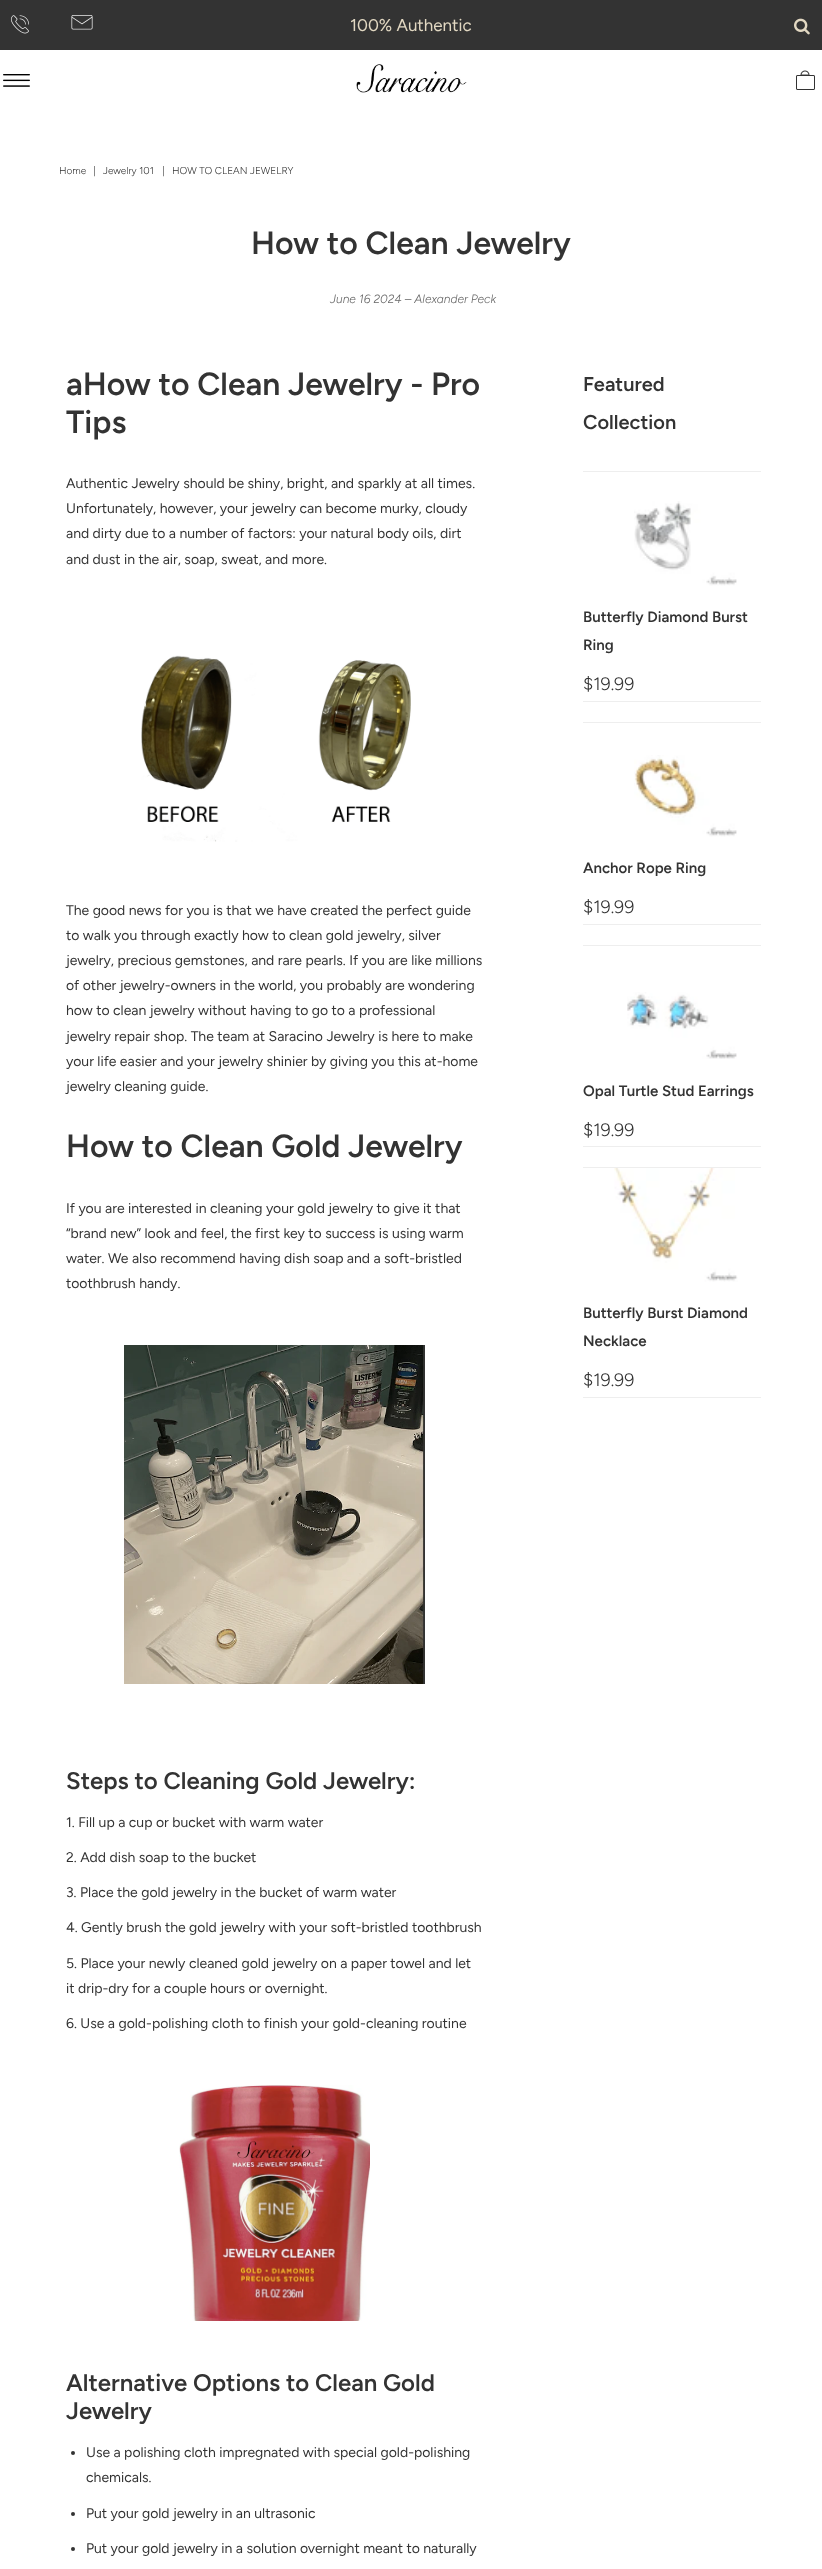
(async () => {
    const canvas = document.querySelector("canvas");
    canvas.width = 822;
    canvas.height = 2569;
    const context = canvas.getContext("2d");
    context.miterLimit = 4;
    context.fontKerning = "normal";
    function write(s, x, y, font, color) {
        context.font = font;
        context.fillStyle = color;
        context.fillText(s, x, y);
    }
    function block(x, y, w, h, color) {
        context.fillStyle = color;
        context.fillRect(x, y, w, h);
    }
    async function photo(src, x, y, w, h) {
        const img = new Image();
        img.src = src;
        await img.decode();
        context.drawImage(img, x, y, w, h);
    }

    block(0, 0, 822, 2569, "rgb(255, 255, 255)");
    block(0, 0, 822, 50, "rgb(51, 51, 51)");
    await photo("media/1.png", 10, 15, 19, 19);
    await photo("media/2.png", 71, 15, 22, 15);
    write("100% Authentic", 350, 31, "17px Figtree", "rgb(226, 216, 194)");
    await photo("media/3.png", 794, 18, 16, 17);
    await photo("media/4.png", 3, 74, 27, 13);
    await photo("media/5.png", 356, 64, 111, 29);
    await photo("media/6.png", 796, 70, 19, 20);
    write("Home", 59, 174, "300 10px Figtree", "rgb(51, 51, 51)");
    write("|", 93, 174, "300 10px Figtree", "rgb(51, 51, 51)");
    write("Jewelry 101", 103, 174, "300 10px Figtree", "rgb(51, 51, 51)");
    write("|", 162, 174, "300 10px Figtree", "rgb(51, 51, 51)");
    write("HOW TO CLEAN JEWELRY", 172, 174, "300 10px Figtree", "rgb(51, 51, 51)");
    write("How to Clean Jewelry", 251, 254, "600 32px Figtree", "rgb(51, 51, 51)");
    write("June 16 2024 – Alexander Peck", 330, 303, "italic 300 12px Figtree", "rgb(102, 102, 102)");
    write("aHow to Clean Jewelry - Pro", 66, 395, "600 32px Figtree", "rgb(51, 51, 51)");
    write("Tips", 66, 433, "600 32px Figtree", "rgb(51, 51, 51)");
    write("Authentic Jewelry should be shiny, bright, and sparkly at all times.", 66, 488, "14px Figtree", "rgb(51, 51, 51)");
    write("Unfortunately, however, your jewelry can become murky, cloudy", 66, 513, "14px Figtree", "rgb(51, 51, 51)");
    write("and dirty due to a number of factors: your natural body oils, dirt", 66, 538, "14px Figtree", "rgb(51, 51, 51)");
    write("and dust in the air, soap, sweat, and more.", 66, 564, "14px Figtree", "rgb(51, 51, 51)");
    await photo("media/7.png", 141, 655, 270, 187);
    write("The good news for you is that we have created the perfect guide", 66, 915, "14px Figtree", "rgb(51, 51, 51)");
    write("to walk you through exactly how to clean gold jewelry, silver", 66, 940, "14px Figtree", "rgb(51, 51, 51)");
    write("jewelry, precious gemstones, and rare pearls. If you are like millions", 66, 965, "14px Figtree", "rgb(51, 51, 51)");
    write("of other jewelry-owners in the world, you probably are wondering", 66, 990, "14px Figtree", "rgb(51, 51, 51)");
    write("how to clean jewelry without having to go to a professional", 66, 1015, "14px Figtree", "rgb(51, 51, 51)");
    write("jewelry repair shop. The team at Saracino Jewelry is here to make", 66, 1041, "14px Figtree", "rgb(51, 51, 51)");
    write("your life easier and your jewelry shinier by giving you this at-home", 66, 1066, "14px Figtree", "rgb(51, 51, 51)");
    write("jewelry cleaning guide.", 66, 1091, "14px Figtree", "rgb(51, 51, 51)");
    write("How to Clean Gold Jewelry", 66, 1157, "600 32px Figtree", "rgb(51, 51, 51)");
    write("If you are interested in cleaning your gold jewelry to give it that", 66, 1213, "14px Figtree", "rgb(51, 51, 51)");
    write("“brand new” look and feel, the first key to success is using warm", 66, 1238, "14px Figtree", "rgb(51, 51, 51)");
    write("water. We also recommend having dish soap and a soft-bristled", 66, 1263, "14px Figtree", "rgb(51, 51, 51)");
    write("toothbrush handy.", 66, 1288, "14px Figtree", "rgb(51, 51, 51)");
    await photo("media/8.png", 124, 1345, 301, 339);
    write("Steps to Cleaning Gold Jewelry:", 66, 1789, "600 24px Figtree", "rgb(51, 51, 51)");
    write("1. Fill up a cup or bucket with warm water", 66, 1827, "14px Figtree", "rgb(51, 51, 51)");
    write("2. Add dish soap to the bucket", 66, 1862, "14px Figtree", "rgb(51, 51, 51)");
    write("3. Place the gold jewelry in the bucket of warm water", 66, 1897, "14px Figtree", "rgb(51, 51, 51)");
    write("4. Gently brush the gold jewelry with your soft-bristled toothbrush", 66, 1932, "14px Figtree", "rgb(51, 51, 51)");
    write("5. Place your newly cleaned gold jewelry on a paper towel and let", 66, 1968, "14px Figtree", "rgb(51, 51, 51)");
    write("it drip-dry for a couple hours or overnight.", 66, 1993, "14px Figtree", "rgb(51, 51, 51)");
    write("6. Use a gold-polishing cloth to finish your gold-cleaning routine", 66, 2028, "14px Figtree", "rgb(51, 51, 51)");
    await photo("media/9.png", 179, 2085, 191, 236);
    write("Alternative Options to Clean Gold", 66, 2391, "600 24px Figtree", "rgb(51, 51, 51)");
    write("Jewelry", 66, 2419, "600 24px Figtree", "rgb(51, 51, 51)");
    context.beginPath();
    context.arc(73, 2453, 2, 0, Math.PI * 2);
    context.fill();
    write("Use a polishing cloth impregnated with special gold-polishing", 86, 2457, "14px Figtree", "rgb(51, 51, 51)");
    write("chemicals.", 86, 2482, "14px Figtree", "rgb(51, 51, 51)");
    context.beginPath();
    context.arc(73, 2514, 2, 0, Math.PI * 2);
    context.fill();
    write("Put your gold jewelry in an ultrasonic", 86, 2518, "14px Figtree", "rgb(51, 51, 51)");
    context.beginPath();
    context.arc(73, 2549, 2, 0, Math.PI * 2);
    context.fill();
    write("Put your gold jewelry in a solution overnight meant to naturally", 86, 2553, "14px Figtree", "rgb(51, 51, 51)");
    write("Featured", 583, 391, "600 20px Figtree", "rgb(51, 51, 51)");
    write("Collection", 583, 429, "600 20px Figtree", "rgb(51, 51, 51)");
    block(583, 471, 178, 1, "rgb(238, 238, 238)");
    block(583, 701, 178, 1, "rgb(238, 238, 238)");
    await photo("media/10.png", 634, 501, 103, 85);
    write("Butterfly Diamond Burst", 583, 622, "600 15px Figtree", "rgb(51, 51, 51)");
    write("Ring", 583, 650, "600 15px Figtree", "rgb(51, 51, 51)");
    write("$19.99", 583, 690, "300 18px Figtree", "rgb(51, 51, 51)");
    block(583, 722, 178, 1, "rgb(238, 238, 238)");
    block(583, 924, 178, 1, "rgb(238, 238, 238)");
    await photo("media/11.png", 634, 755, 103, 82);
    write("Anchor Rope Ring", 583, 873, "600 15px Figtree", "rgb(51, 51, 51)");
    write("$19.99", 583, 913, "300 18px Figtree", "rgb(51, 51, 51)");
    block(583, 945, 178, 1, "rgb(238, 238, 238)");
    block(583, 1146, 178, 1, "rgb(238, 238, 238)");
    await photo("media/12.png", 627, 992, 110, 67);
    write("Opal Turtle Stud Earrings", 583, 1096, "600 15px Figtree", "rgb(51, 51, 51)");
    write("$19.99", 583, 1136, "300 18px Figtree", "rgb(51, 51, 51)");
    block(583, 1167, 178, 1, "rgb(238, 238, 238)");
    block(583, 1397, 178, 1, "rgb(238, 238, 238)");
    await photo("media/13.png", 614, 1168, 124, 114);
    write("Butterfly Burst Diamond", 583, 1318, "600 15px Figtree", "rgb(51, 51, 51)");
    write("Necklace", 583, 1346, "600 15px Figtree", "rgb(51, 51, 51)");
    write("$19.99", 583, 1386, "300 18px Figtree", "rgb(51, 51, 51)");
})();
